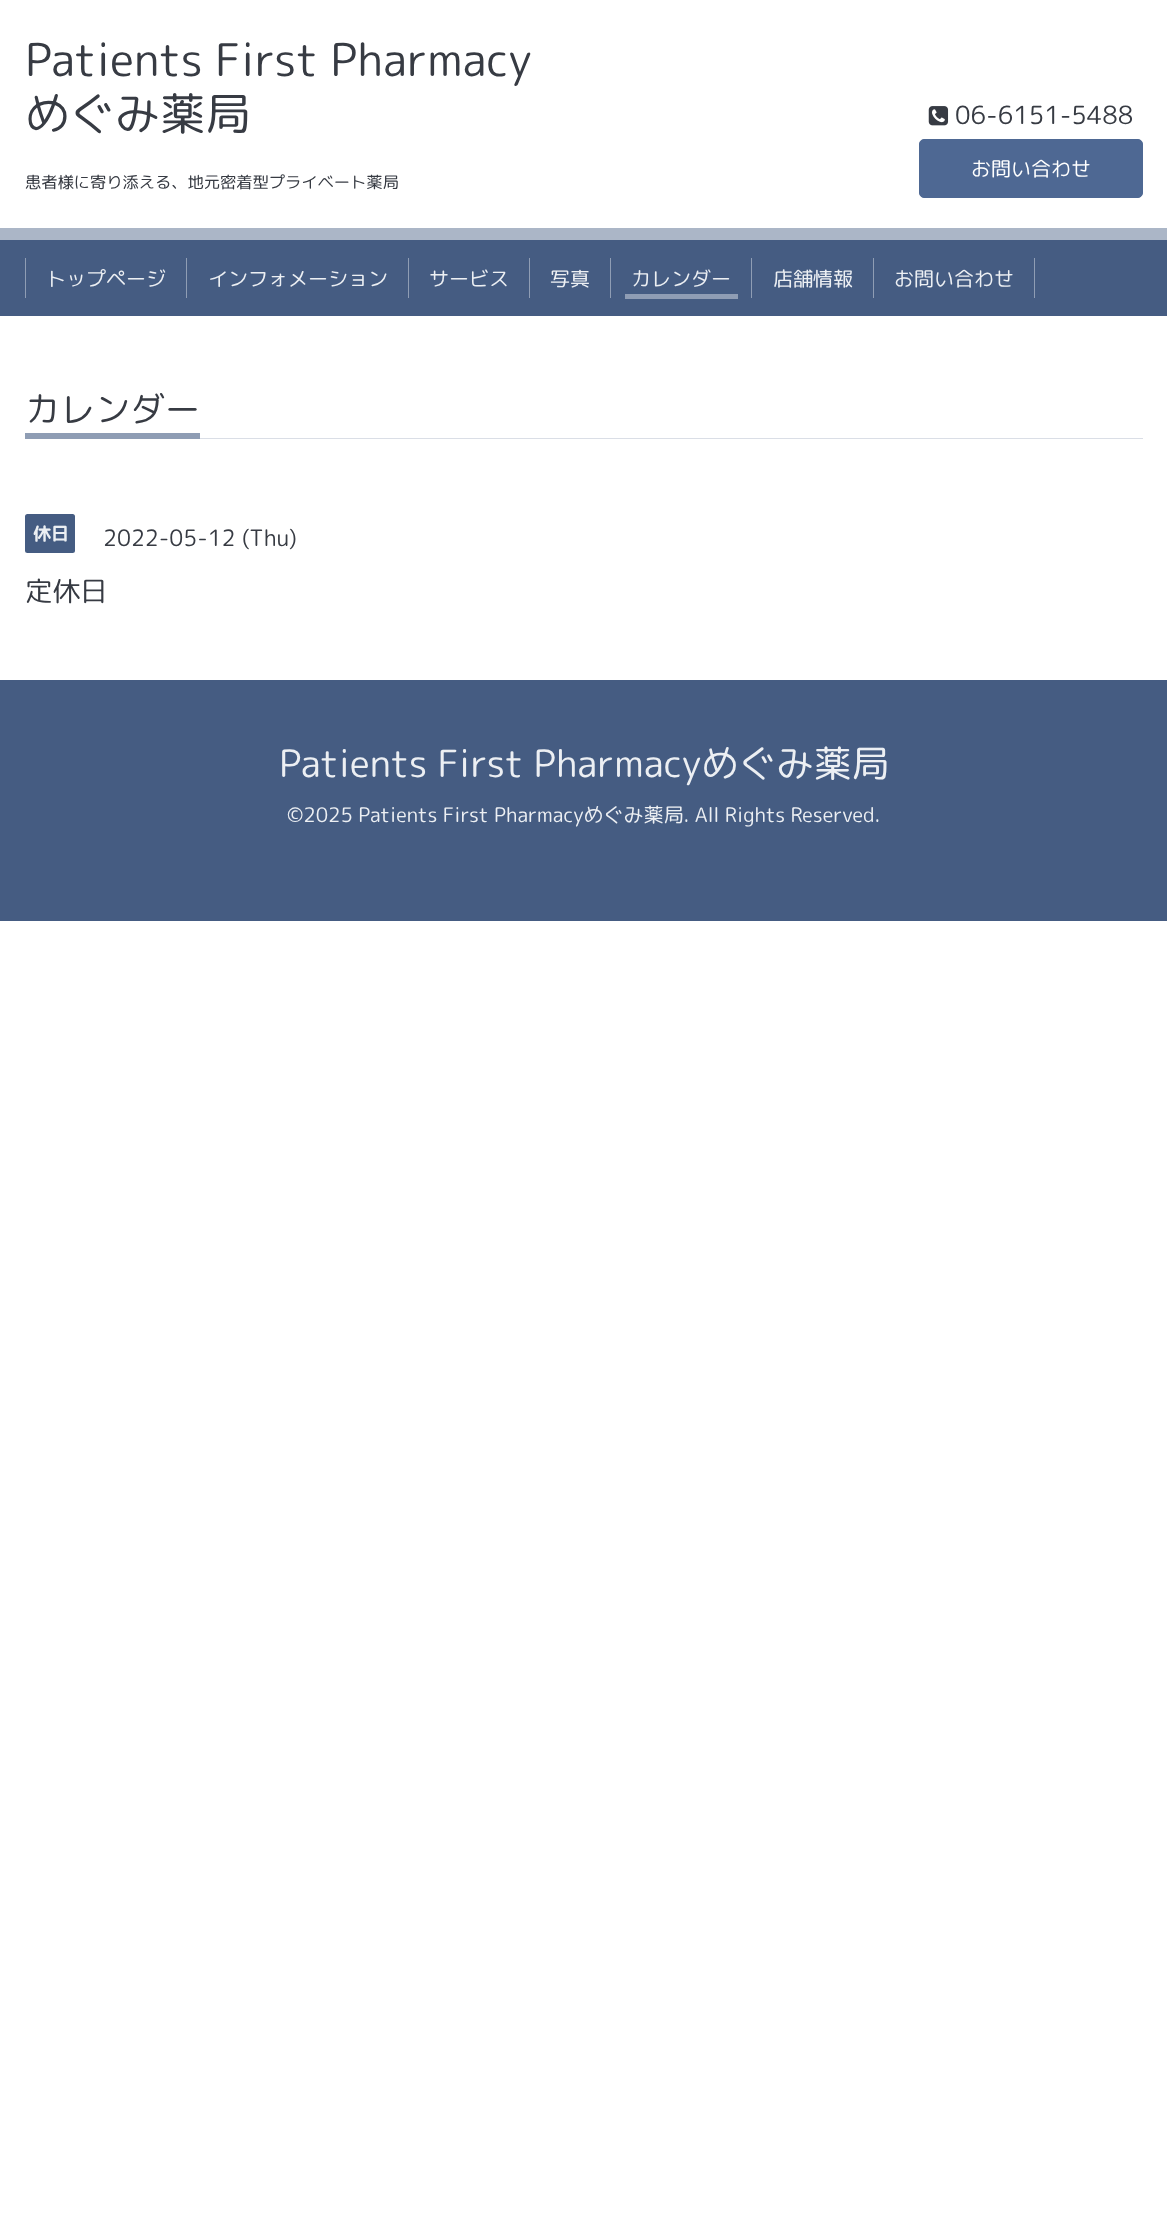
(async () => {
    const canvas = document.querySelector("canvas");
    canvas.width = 1167;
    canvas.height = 2219;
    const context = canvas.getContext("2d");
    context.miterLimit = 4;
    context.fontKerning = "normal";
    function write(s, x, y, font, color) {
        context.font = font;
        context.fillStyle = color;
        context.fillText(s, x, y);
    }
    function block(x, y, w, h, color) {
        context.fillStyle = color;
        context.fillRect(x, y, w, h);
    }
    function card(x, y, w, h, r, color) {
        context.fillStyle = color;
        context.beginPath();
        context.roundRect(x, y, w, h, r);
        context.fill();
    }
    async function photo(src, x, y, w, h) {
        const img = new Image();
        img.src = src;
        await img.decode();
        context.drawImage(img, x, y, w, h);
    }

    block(0, 0, 1167, 2219, "rgb(255, 255, 255)");
    write("Patients First Pharmacy", 25, 76, "45px 'Rounded Mplus 1c'", "rgb(55, 59, 67)");
    write("めぐみ薬局", 25, 130, "45px 'Rounded Mplus 1c'", "rgb(55, 59, 67)");
    write("患者様に寄り添える、地元密着型プライベート薬局", 25, 188, "16.25px 'Rounded Mplus 1c'", "rgb(55, 59, 67)");
    await photo("media/1.png", 928, 106, 21, 20);
    write("06-6151-5488", 955, 124, "25px 'Rounded Mplus 1c'", "rgb(55, 59, 67)");
    context.fillStyle = "rgb(78, 104, 147)";
    context.beginPath();
    context.roundRect(919.5, 139.5, 223, 58, 4.5);
    context.fill();
    context.strokeStyle = "rgb(78, 104, 147)";
    context.stroke();
    write("お問い合わせ", 971, 176, "20px 'Rounded Mplus 1c'", "rgb(255, 255, 255)");
    block(0, 228, 1167, 12, "rgb(171, 182, 199)");
    block(0, 240, 1167, 76, "rgb(69, 92, 130)");
    block(186, 258, 1, 40, "rgb(143, 157, 180)");
    block(25, 258, 1, 40, "rgb(143, 157, 180)");
    write("トップページ", 46, 286, "20px 'Rounded Mplus 1c'", "rgb(236, 239, 243)");
    block(408, 258, 1, 40, "rgb(143, 157, 180)");
    write("インフォメーション", 208, 286, "20px 'Rounded Mplus 1c'", "rgb(236, 239, 243)");
    block(529, 258, 1, 40, "rgb(143, 157, 180)");
    write("サービス", 429, 286, "20px 'Rounded Mplus 1c'", "rgb(236, 239, 243)");
    block(610, 258, 1, 40, "rgb(143, 157, 180)");
    write("写真", 550, 286, "20px 'Rounded Mplus 1c'", "rgb(236, 239, 243)");
    block(751, 258, 1, 40, "rgb(143, 157, 180)");
    write("カレンダー", 631, 286, "20px 'Rounded Mplus 1c'", "rgb(236, 239, 243)");
    block(625, 294, 113, 5, "rgb(143, 157, 180)");
    block(873, 258, 1, 40, "rgb(143, 157, 180)");
    write("店舗情報", 773, 286, "20px 'Rounded Mplus 1c'", "rgb(236, 239, 243)");
    block(1034, 258, 1, 40, "rgb(143, 157, 180)");
    write("お問い合わせ", 894, 286, "20px 'Rounded Mplus 1c'", "rgb(236, 239, 243)");
    block(200, 438, 943, 1, "rgb(218, 222, 230)");
    block(25, 433, 175, 6, "rgb(143, 157, 180)");
    write("カレンダー", 25, 422, "35px 'Rounded Mplus 1c'", "rgb(55, 59, 67)");
    card(25, 514, 50, 39, 2.5, "rgb(69, 92, 130)");
    write("休日", 33, 540, "bold 18px 'Rounded Mplus 1c Bold'", "rgb(236, 239, 243)");
    write("2022-05-12 (Thu)", 103, 546, "22.5px 'Rounded Mplus 1c'", "rgb(55, 59, 67)");
    write("定休日", 25, 601, "27.5px 'Rounded Mplus 1c'", "rgb(55, 59, 67)");
    block(0, 680, 1167, 241, "rgb(69, 92, 130)");
    write("Patients First Pharmacyめぐみ薬局", 279, 777, "37.5px 'Rounded Mplus 1c'", "rgb(236, 239, 243)");
    write("©2025 Patients First Pharmacyめぐみ薬局. All Rights Reserved.", 287, 822, "20px 'Rounded Mplus 1c'", "rgb(236, 239, 243)");
})();
